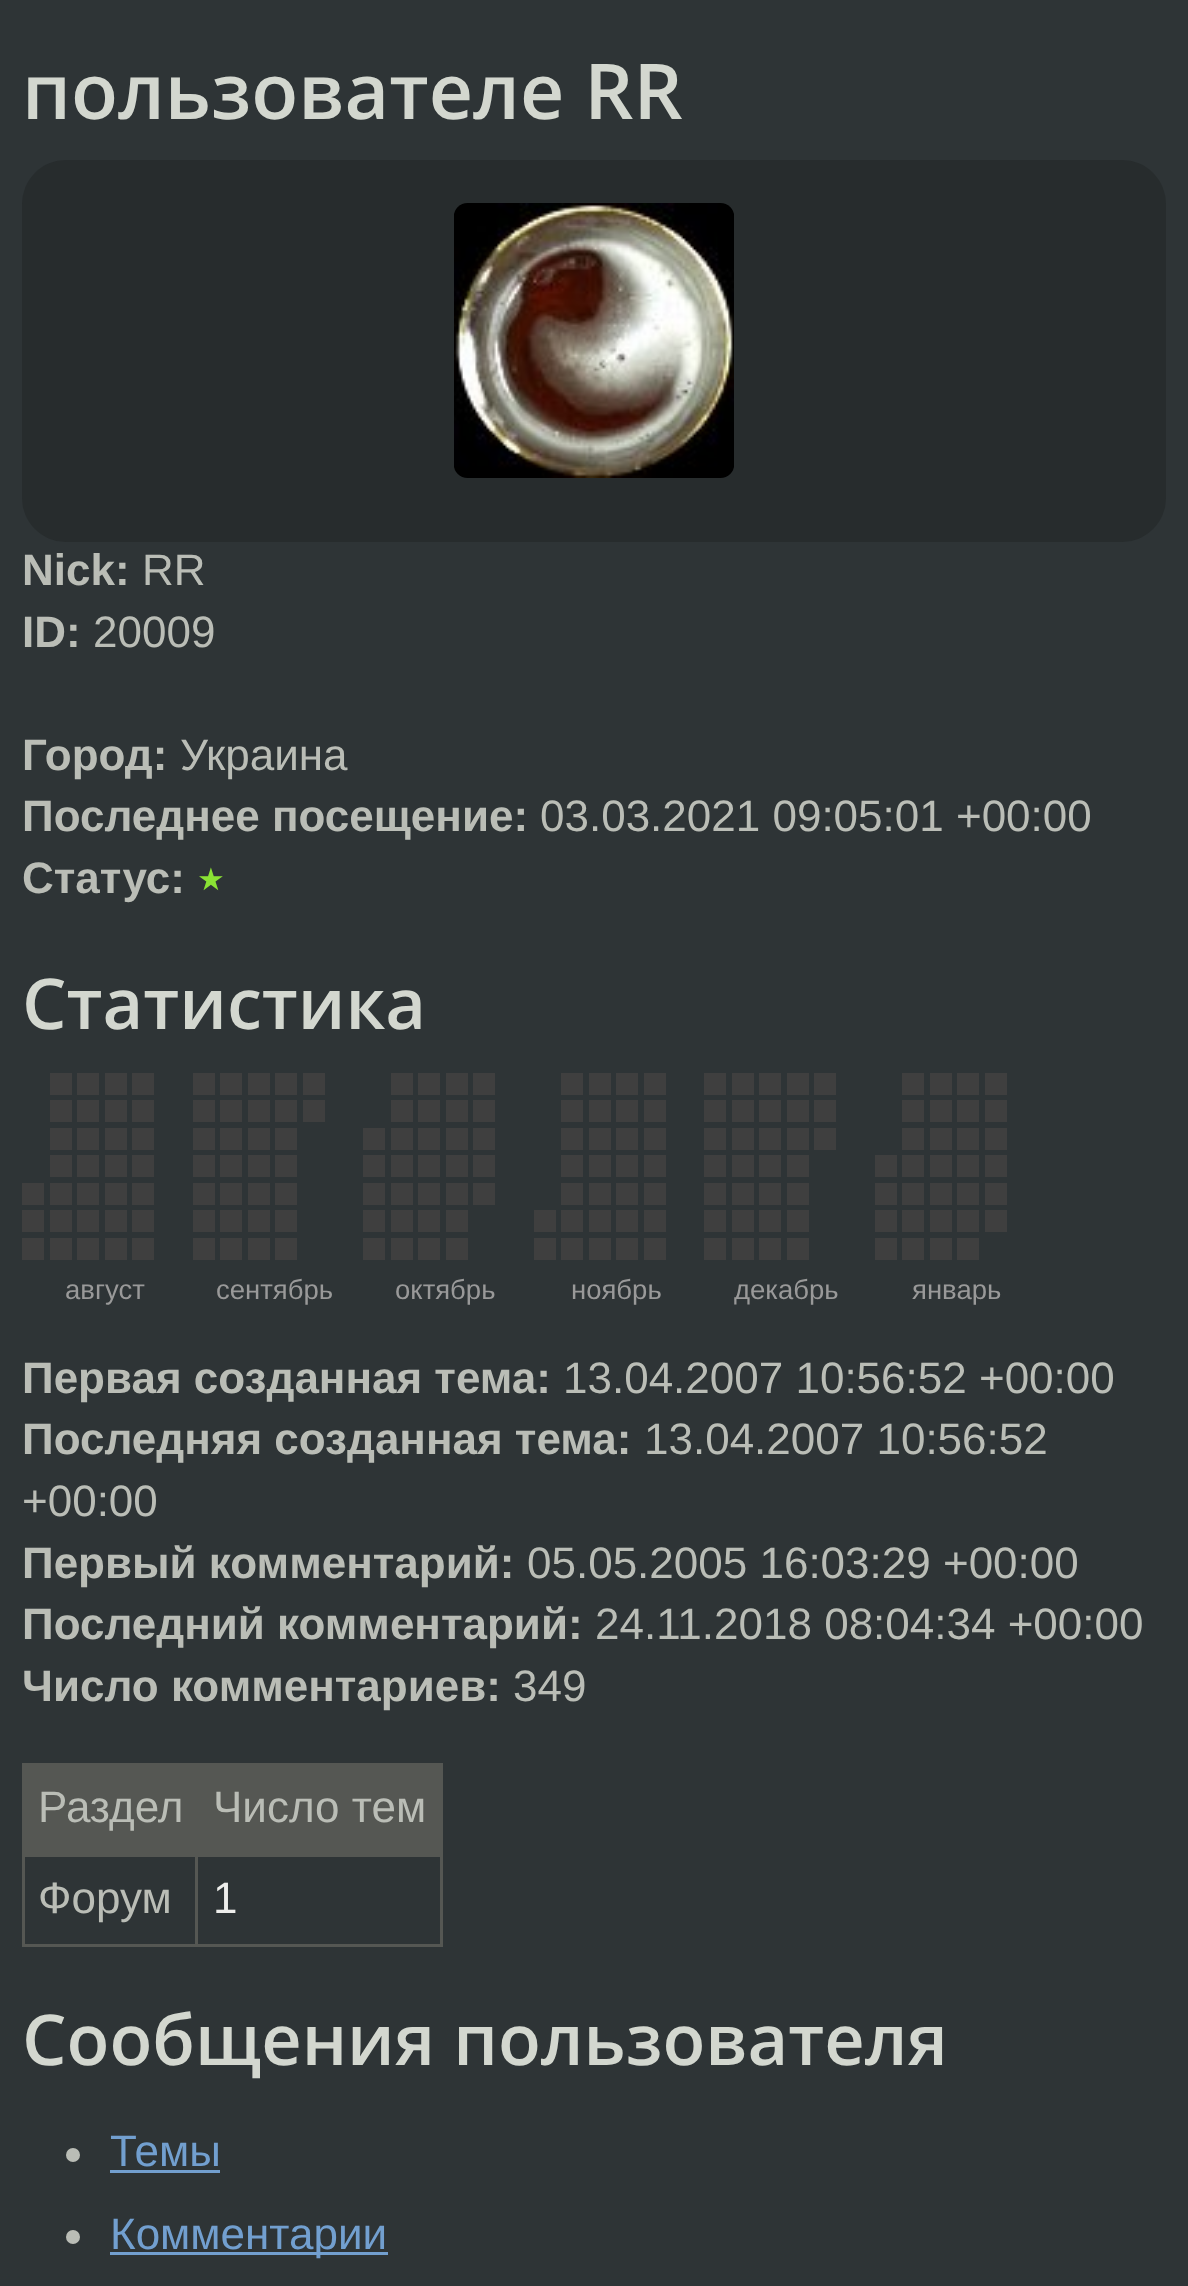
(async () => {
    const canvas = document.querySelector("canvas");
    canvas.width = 1188;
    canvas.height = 2286;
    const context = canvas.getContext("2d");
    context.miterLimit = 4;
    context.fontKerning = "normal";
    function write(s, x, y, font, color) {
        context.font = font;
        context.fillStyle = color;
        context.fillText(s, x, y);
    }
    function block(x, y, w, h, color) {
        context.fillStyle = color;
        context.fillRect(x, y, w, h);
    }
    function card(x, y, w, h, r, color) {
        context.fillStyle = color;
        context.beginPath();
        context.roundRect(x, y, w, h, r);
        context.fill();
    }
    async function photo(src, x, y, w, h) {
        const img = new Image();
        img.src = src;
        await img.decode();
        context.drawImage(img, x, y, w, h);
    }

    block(0, 0, 1188, 2286, "rgb(46, 52, 54)");
    write("пользователе RR", 22, 119, "600 77px Open Sans", "rgb(211, 215, 207)");
    card(22, 160, 1144, 382, 44, "rgb(39, 44, 45)");
    await photo("media/1.png", 454, 203, 280, 275);
    write("Nick:", 22, 585, "bold 44px Liberation Sans", "rgb(186, 189, 182)");
    write("RR", 142, 585, "44px Liberation Sans", "rgb(186, 189, 182)");
    write("ID:", 22, 647, "bold 44px Liberation Sans", "rgb(186, 189, 182)");
    write("20009", 93, 647, "44px Liberation Sans", "rgb(186, 189, 182)");
    write("Город:", 22, 770, "bold 44px Liberation Sans", "rgb(186, 189, 182)");
    write("Украина", 180, 770, "44px Liberation Sans", "rgb(186, 189, 182)");
    write("Последнее посещение:", 22, 831, "bold 44px Liberation Sans", "rgb(186, 189, 182)");
    write("03.03.2021 09:05:01 +00:00", 540, 831, "44px Liberation Sans", "rgb(186, 189, 182)");
    write("Статус:", 22, 893, "bold 44px Liberation Sans", "rgb(186, 189, 182)");
    context.letterSpacing = "4px";
    write("★", 197, 890, "31px DejaVu Sans", "rgb(138, 226, 52)");
    context.letterSpacing = "0px";
    write("Статистика", 22, 1029, "600 70.25px Open Sans", "rgb(211, 215, 207)");
    await photo("media/2.png", 22, 1073, 985, 187);
    write("август", 65, 1299, "27.5px Liberation Sans", "rgb(153, 153, 153)");
    write("сентябрь", 216, 1299, "27.5px Liberation Sans", "rgb(153, 153, 153)");
    write("октябрь", 395, 1299, "27.5px Liberation Sans", "rgb(153, 153, 153)");
    write("ноябрь", 571, 1299, "27.5px Liberation Sans", "rgb(153, 153, 153)");
    write("декабрь", 734, 1299, "27.5px Liberation Sans", "rgb(153, 153, 153)");
    write("январь", 912, 1299, "27.5px Liberation Sans", "rgb(153, 153, 153)");
    write("Первая созданная тема:", 22, 1393, "bold 44px Liberation Sans", "rgb(186, 189, 182)");
    write("13.04.2007 10:56:52 +00:00", 563, 1393, "44px Liberation Sans", "rgb(186, 189, 182)");
    write("Последняя созданная тема:", 22, 1454, "bold 44px Liberation Sans", "rgb(186, 189, 182)");
    write("13.04.2007 10:56:52", 644, 1454, "44px Liberation Sans", "rgb(186, 189, 182)");
    write("+00:00", 22, 1516, "44px Liberation Sans", "rgb(186, 189, 182)");
    write("Первый комментарий:", 22, 1578, "bold 44px Liberation Sans", "rgb(186, 189, 182)");
    write("05.05.2005 16:03:29 +00:00", 527, 1578, "44px Liberation Sans", "rgb(186, 189, 182)");
    write("Последний комментарий:", 22, 1639, "bold 44px Liberation Sans", "rgb(186, 189, 182)");
    write("24.11.2018 08:04:34 +00:00", 595, 1639, "44px Liberation Sans", "rgb(186, 189, 182)");
    write("Число комментариев:", 22, 1701, "bold 44px Liberation Sans", "rgb(186, 189, 182)");
    write("349", 513, 1701, "44px Liberation Sans", "rgb(186, 189, 182)");
    block(25, 1766, 415, 88, "rgb(85, 87, 83)");
    block(22, 1763, 421, 3, "rgb(85, 87, 83)");
    block(195, 1854, 248, 3, "rgb(85, 87, 83)");
    block(440, 1854, 3, 93, "rgb(85, 87, 83)");
    block(195, 1944, 248, 3, "rgb(85, 87, 83)");
    block(195, 1854, 3, 93, "rgb(85, 87, 83)");
    block(22, 1854, 176, 3, "rgb(85, 87, 83)");
    block(22, 1944, 176, 3, "rgb(85, 87, 83)");
    block(22, 1854, 3, 93, "rgb(85, 87, 83)");
    block(22, 1763, 3, 93, "rgb(85, 87, 83)");
    write("Раздел", 38, 1822, "44px Liberation Sans", "rgb(186, 189, 182)");
    block(440, 1763, 3, 93, "rgb(85, 87, 83)");
    write("Число тем", 213, 1822, "44px Liberation Sans", "rgb(186, 189, 182)");
    write("Форум", 38, 1913, "44px Liberation Sans", "rgb(186, 189, 182)");
    write("1", 213, 1913, "44px Liberation Sans", "rgb(238, 238, 236)");
    write("Сообщения пользователя", 22, 2065, "600 70.25px Open Sans", "rgb(211, 215, 207)");
    context.fillStyle = "rgb(186, 189, 182)";
    context.beginPath();
    context.arc(73, 2155, 7, 0, Math.PI * 2);
    context.fill();
    write("Темы", 110, 2166, "44px Liberation Sans", "rgb(114, 159, 207)");
    block(110, 2170, 110, 3, "rgb(114, 159, 207)");
    context.fillStyle = "rgb(186, 189, 182)";
    context.beginPath();
    context.arc(73, 2237, 7, 0, Math.PI * 2);
    context.fill();
    block(110, 2252, 278, 3, "rgb(114, 159, 207)");
    write("Комментарии", 110, 2249, "44px Liberation Sans", "rgb(114, 159, 207)");
})();
